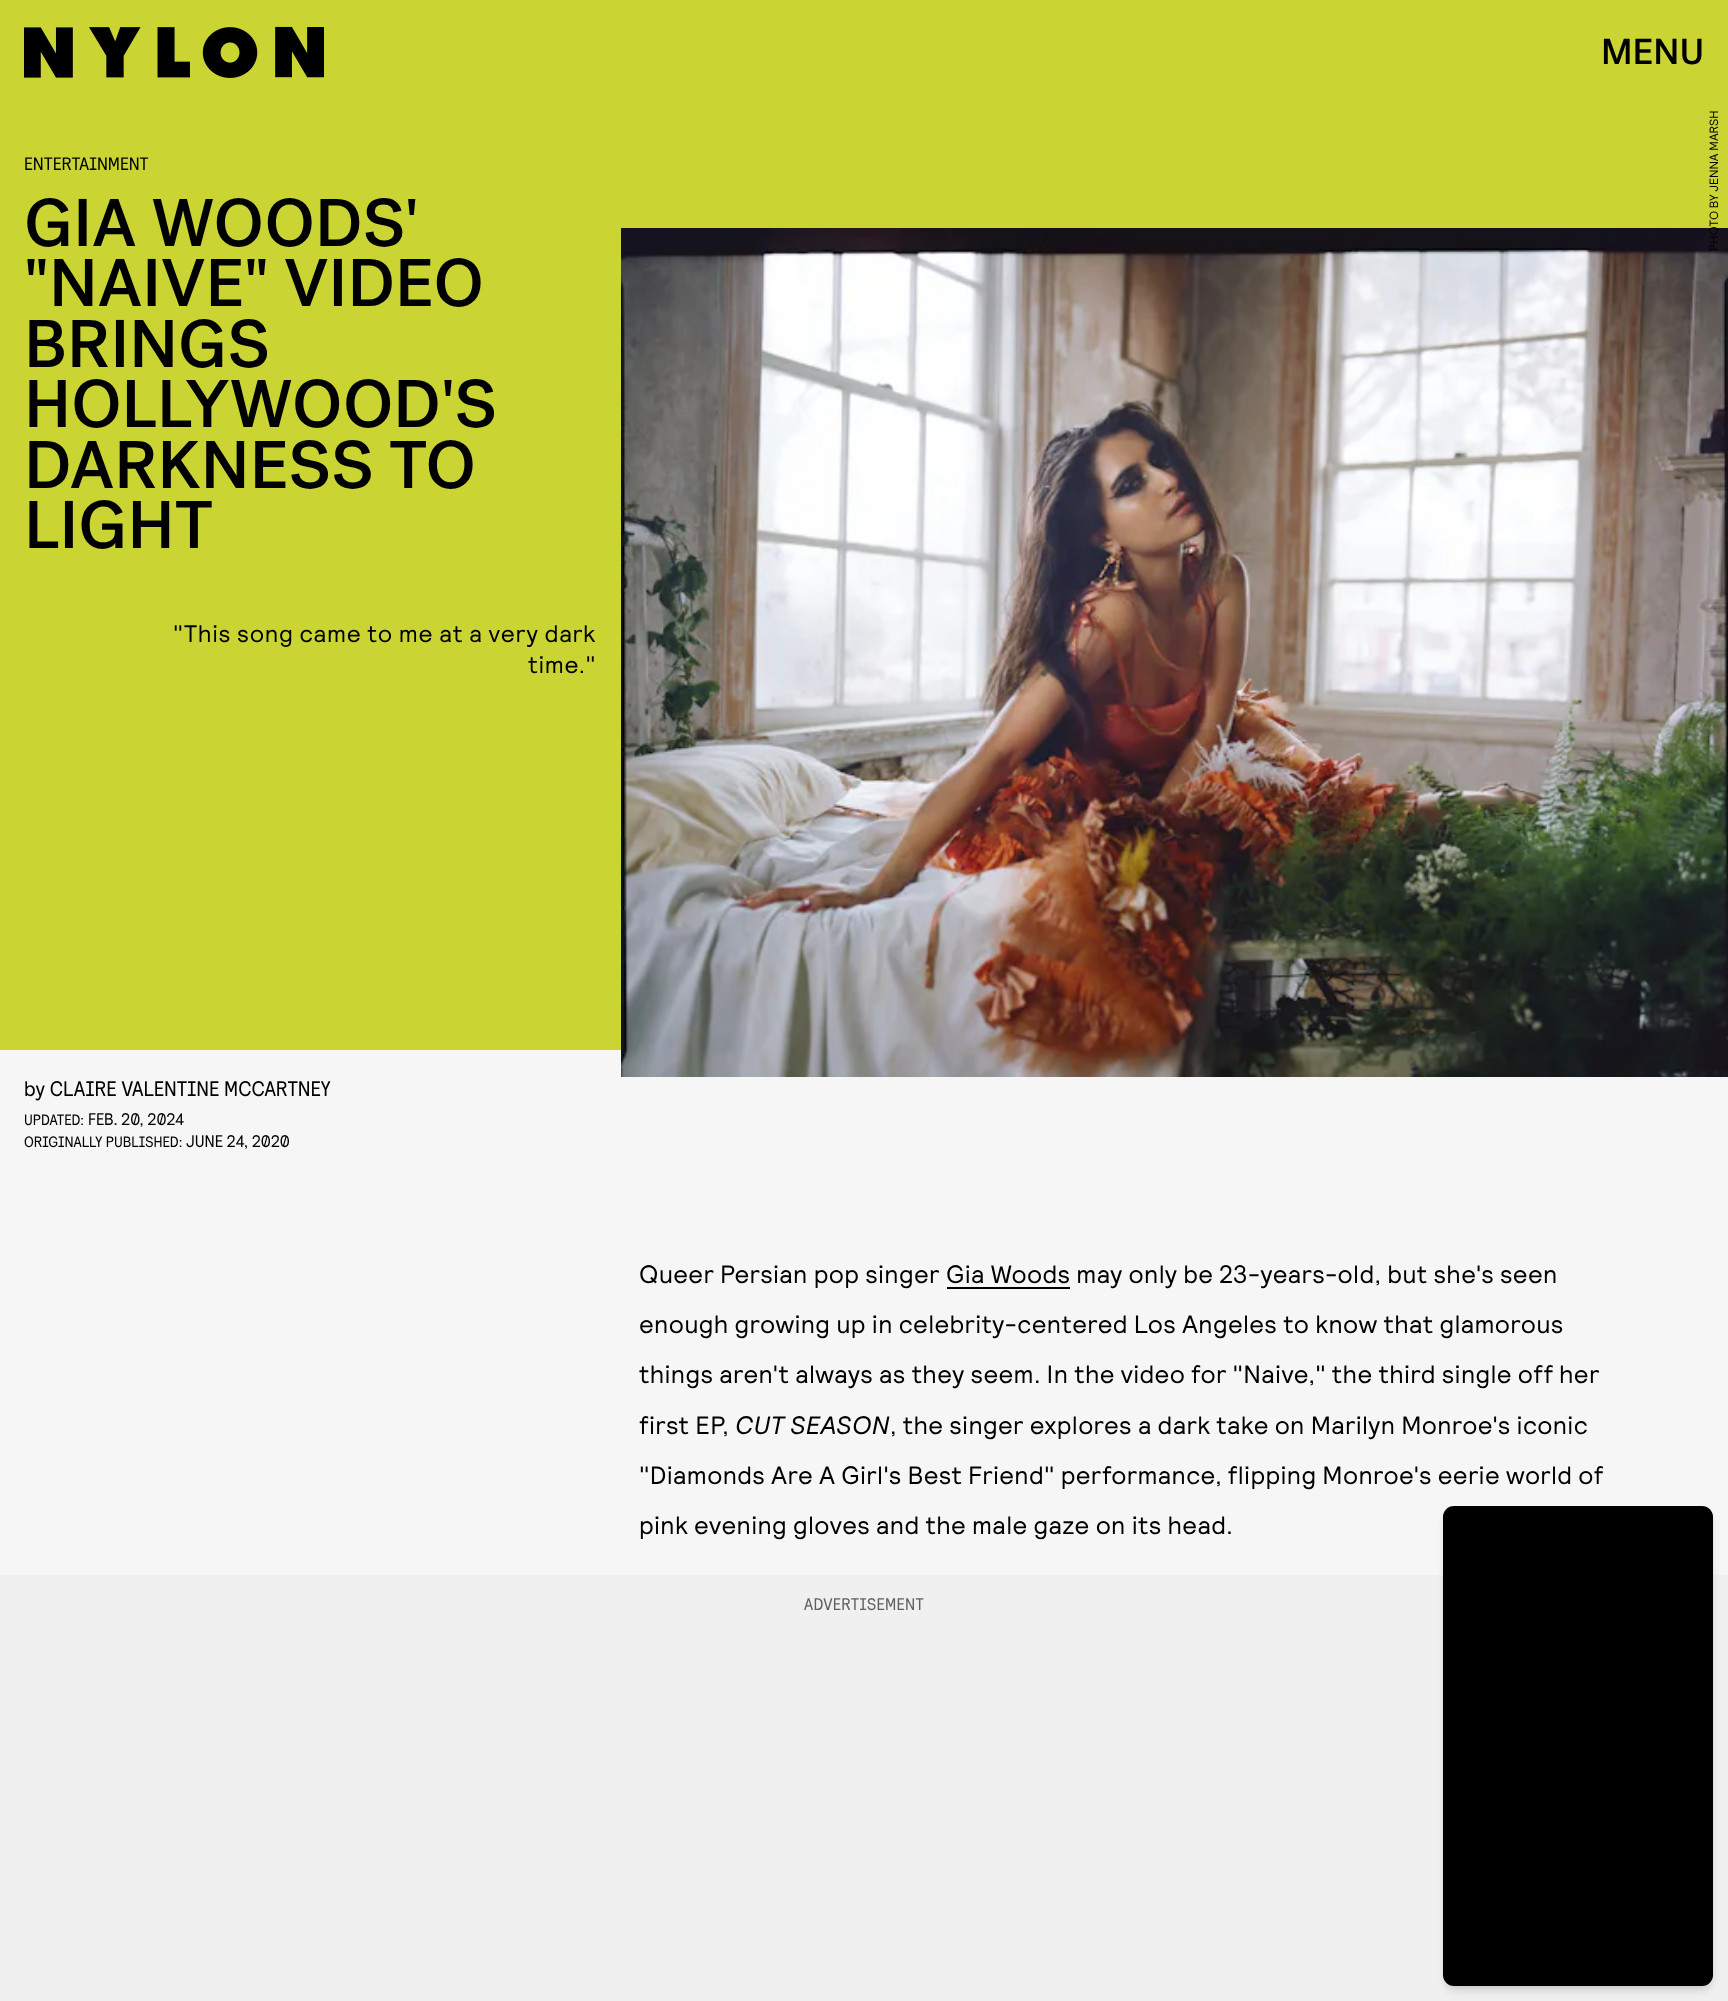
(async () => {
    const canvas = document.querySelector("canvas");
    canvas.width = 1728;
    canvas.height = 2001;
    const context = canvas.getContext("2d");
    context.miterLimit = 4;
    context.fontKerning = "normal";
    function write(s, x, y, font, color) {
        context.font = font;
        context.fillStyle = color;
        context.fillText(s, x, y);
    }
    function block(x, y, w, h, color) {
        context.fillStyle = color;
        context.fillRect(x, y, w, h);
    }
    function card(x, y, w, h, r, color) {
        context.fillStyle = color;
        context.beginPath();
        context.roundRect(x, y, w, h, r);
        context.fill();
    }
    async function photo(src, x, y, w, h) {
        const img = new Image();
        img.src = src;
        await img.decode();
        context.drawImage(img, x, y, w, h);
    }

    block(0, 0, 1728, 2001, "rgb(246, 246, 246)");
    block(0, 0, 1728, 1050, "rgb(202, 213, 51)");
    await photo("media/1.png", 24, 26, 300, 52);
    write("MENU", 1601, 64, "500 36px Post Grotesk", "rgb(0, 0, 0)");
    write("ENTERTAINMENT", 24, 170, "18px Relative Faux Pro", "rgb(0, 0, 0)");
    write("GIA WOODS'", 24, 246, "500 67.25px Post Grotesk", "rgb(0, 0, 0)");
    write("\"NAIVE\" VIDEO", 24, 306, "500 67.25px Post Grotesk", "rgb(0, 0, 0)");
    write("BRINGS", 24, 367, "500 67.25px Post Grotesk", "rgb(0, 0, 0)");
    write("HOLLYWOOD'S", 24, 427, "500 67.25px Post Grotesk", "rgb(0, 0, 0)");
    write("DARKNESS TO", 24, 488, "500 67.25px Post Grotesk", "rgb(0, 0, 0)");
    write("LIGHT", 24, 548, "500 67.25px Post Grotesk", "rgb(0, 0, 0)");
    context.letterSpacing = "0.6px";
    write("\"This song came to me at a very dark", 173, 642, "24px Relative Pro", "rgb(0, 0, 0)");
    write("time.\"", 528, 673, "24px Relative Pro", "rgb(0, 0, 0)");
    context.letterSpacing = "0px";
    write("by CLAIRE VALENTINE MCCARTNEY", 24, 1096, "21px Relative Faux Pro", "rgb(0, 0, 0)");
    write("UPDATED:", 24, 1125, "15px Relative Faux Pro", "rgb(0, 0, 0)");
    write("FEB. 20, 2024", 88, 1125, "16.75px Relative Faux Pro", "rgb(0, 0, 0)");
    write("ORIGINALLY PUBLISHED:", 24, 1147, "15px Relative Faux Pro", "rgb(0, 0, 0)");
    write("JUNE 24, 2020", 186, 1147, "16.75px Relative Faux Pro", "rgb(0, 0, 0)");
    await photo("media/2.png", 621, 228, 1107, 849);
    context.font = "12px Relative Pro";
    context.save();
    context.translate(1718, 251);
    context.rotate(-90 * Math.PI / 180);
    context.fillText("PHOTO BY JENNA MARSH", 0, 0);
    context.restore();
    context.letterSpacing = "0.3px";
    write("Queer Persian pop singer", 639, 1283, "25.2px Relative Pro", "rgb(0, 0, 0)");
    block(947, 1287, 123, 2, "rgb(0, 0, 0)");
    write("Gia Woods may only be 23-years-old, but she's seen", 946, 1283, "25.2px Relative Pro", "rgb(0, 0, 0)");
    write("enough growing up in celebrity-centered Los Angeles to know that glamorous", 639, 1333, "25.2px Relative Pro", "rgb(0, 0, 0)");
    write("things aren't always as they seem. In the video for \"Naive,\" the third single off her", 639, 1383, "25.2px Relative Pro", "rgb(0, 0, 0)");
    write("first EP,", 639, 1434, "25.2px Relative Pro", "rgb(0, 0, 0)");
    write("CUT SEASON", 735, 1434, "italic 25.2px Relative Pro", "rgb(0, 0, 0)");
    write(", the singer explores a dark take on Marilyn Monroe's iconic", 890, 1434, "25.2px Relative Pro", "rgb(0, 0, 0)");
    write("\"Diamonds Are A Girl's Best Friend\" performance, flipping Monroe's eerie world of", 639, 1484, "25.2px Relative Pro", "rgb(0, 0, 0)");
    write("pink evening gloves and the male gaze on its head.", 639, 1534, "25.2px Relative Pro", "rgb(0, 0, 0)");
    block(0, 1575, 1728, 426, "rgb(240, 240, 240)");
    write("ADVERTISEMENT", 804, 1610, "16.75px Relative Faux Pro", "rgb(96, 96, 96)");
    context.fillStyle = "rgba(0, 0, 0, 0.1)";
    context.filter = "blur(3px)";
    context.beginPath();
    context.roundRect(1446, 1512, 264, 474, 8);
    context.fill();
    context.filter = "none";
    context.filter = "blur(4.5px)";
    context.beginPath();
    context.roundRect(1445, 1514, 267, 477, 9);
    context.fill();
    context.filter = "none";
    card(1443, 1506, 270, 480, 11, "rgb(0, 0, 0)");
})();
